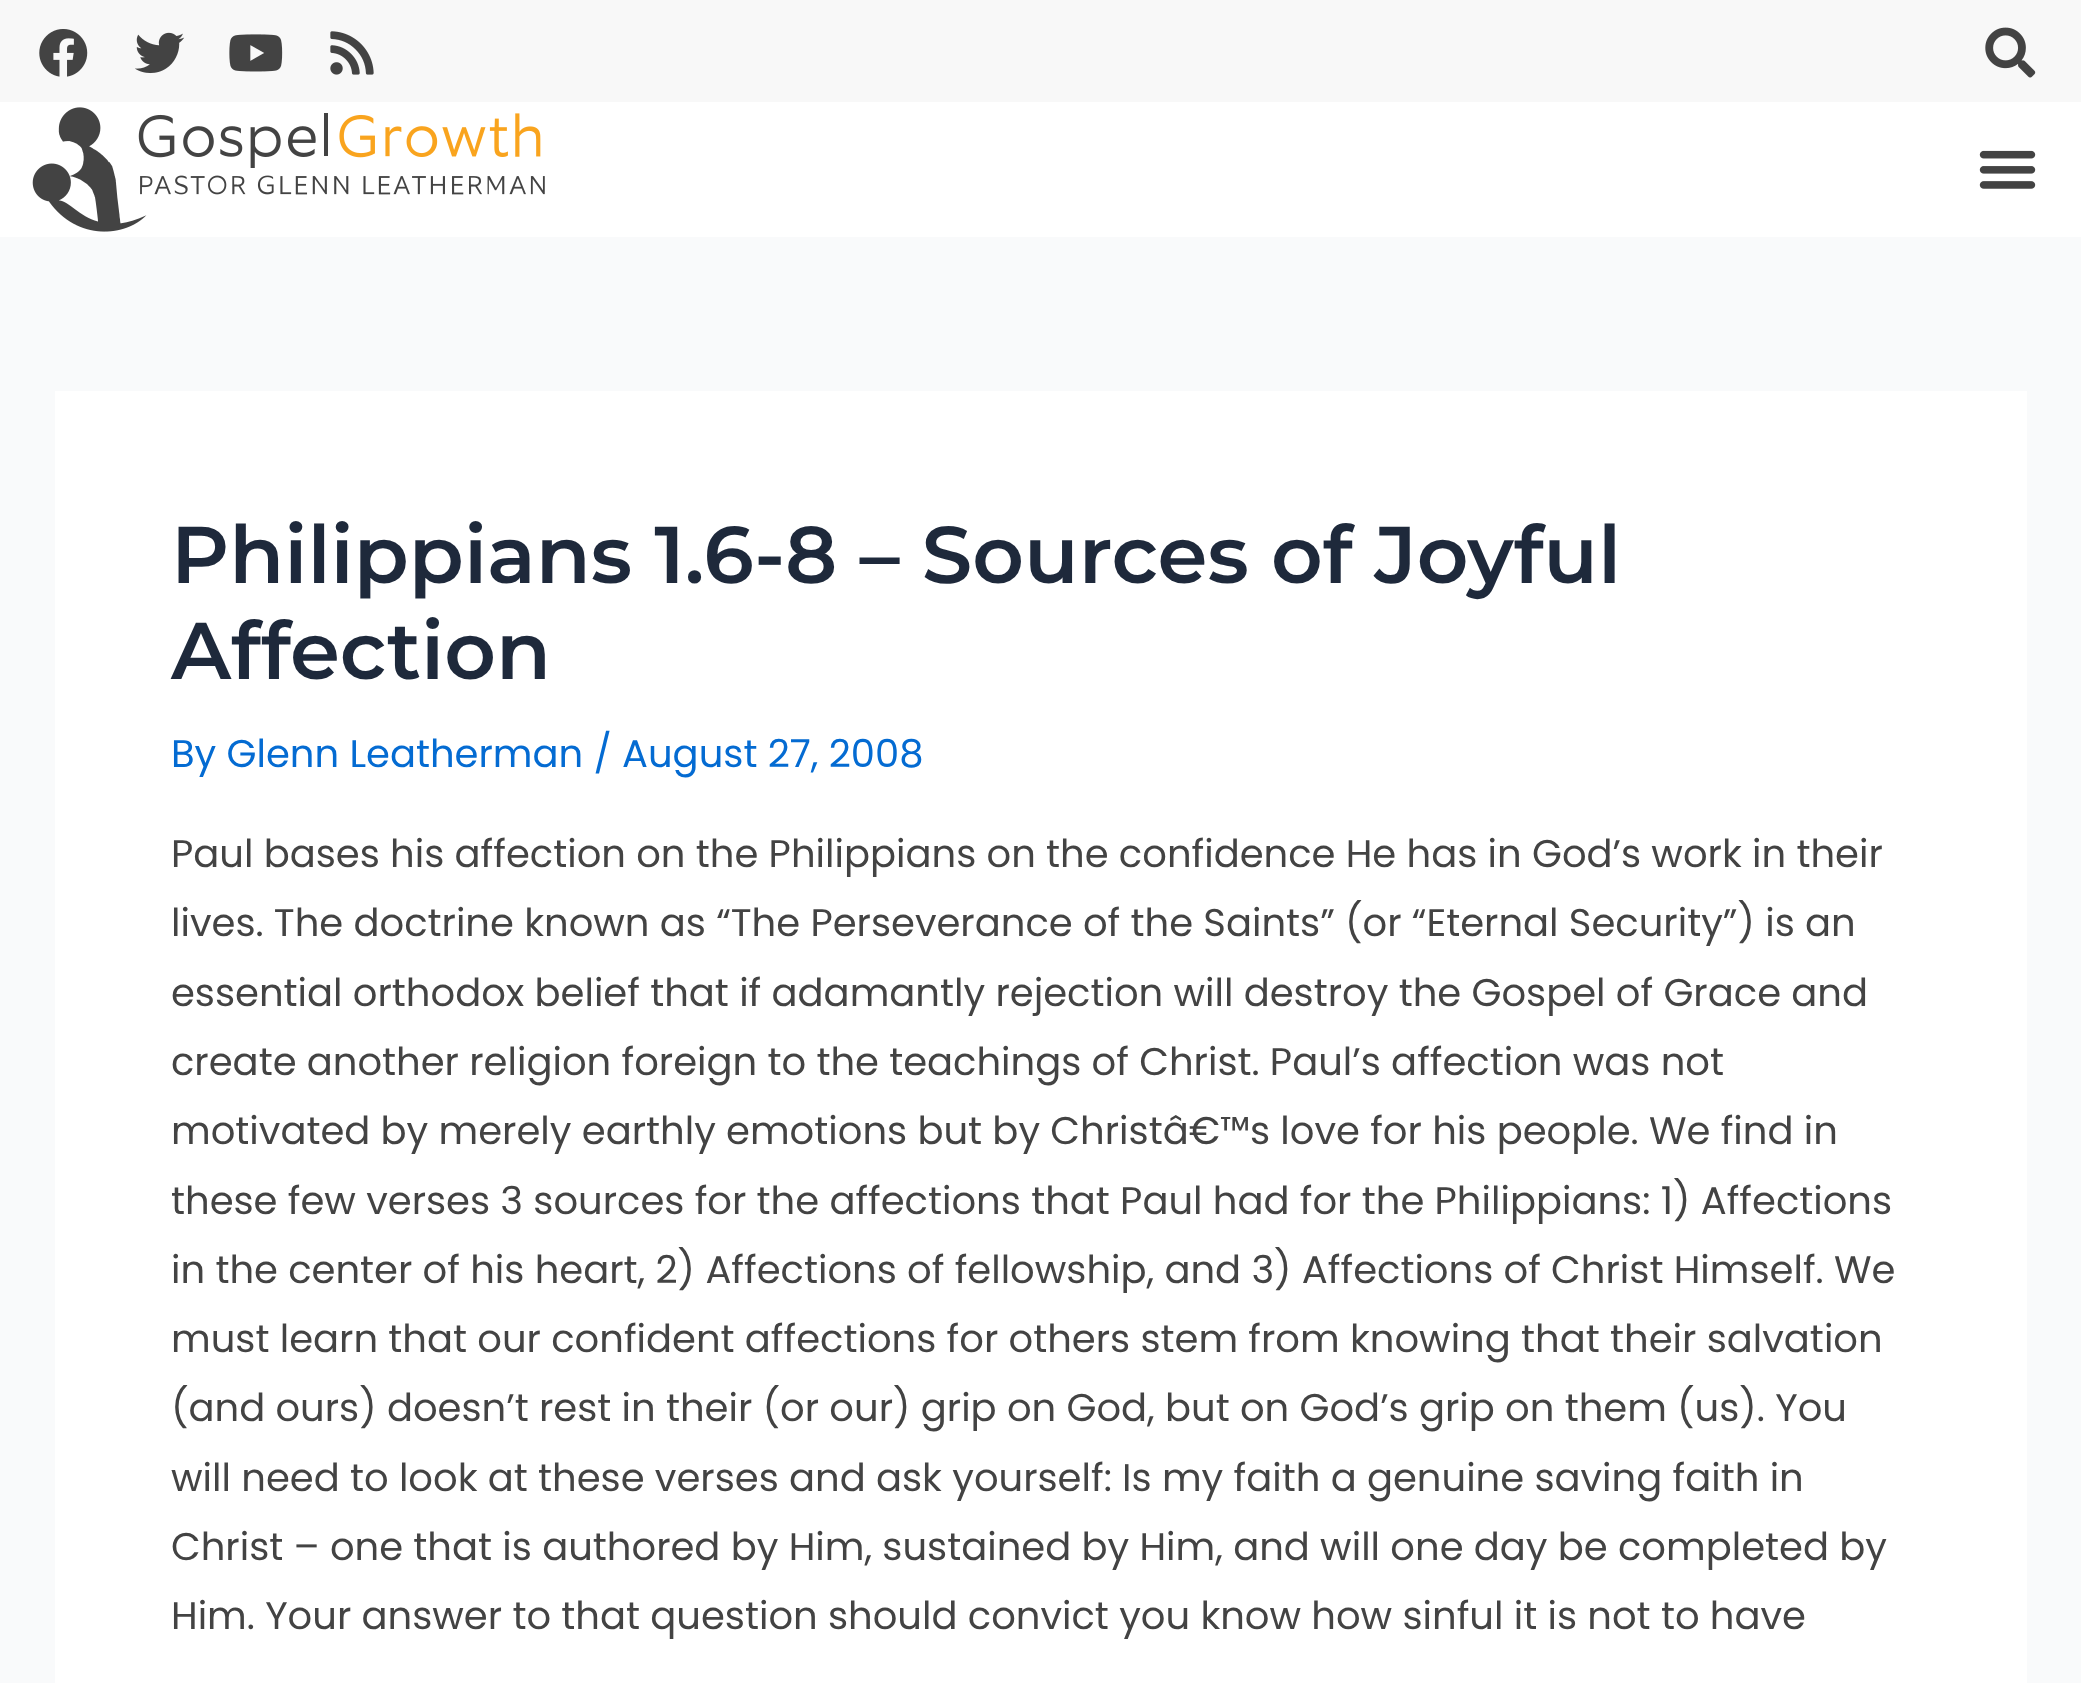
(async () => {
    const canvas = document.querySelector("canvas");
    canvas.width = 2081;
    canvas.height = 1683;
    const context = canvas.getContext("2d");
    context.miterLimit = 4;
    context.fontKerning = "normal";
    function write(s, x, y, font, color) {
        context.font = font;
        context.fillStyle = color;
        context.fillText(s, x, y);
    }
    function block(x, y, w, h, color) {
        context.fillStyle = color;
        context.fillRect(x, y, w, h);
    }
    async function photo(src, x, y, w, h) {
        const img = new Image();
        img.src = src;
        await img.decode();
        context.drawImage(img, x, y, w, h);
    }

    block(0, 0, 2081, 1683, "rgb(249, 250, 251)");
    block(0, 0, 2081, 102, "rgb(248, 248, 248)");
    await photo("media/1.png", 39, 29, 49, 48);
    await photo("media/2.png", 135, 32, 50, 42);
    await photo("media/3.png", 229, 34, 54, 38);
    await photo("media/4.png", 330, 31, 44, 44);
    await photo("media/5.png", 1985, 27, 51, 51);
    block(0, 102, 2081, 135, "rgb(255, 255, 255)");
    await photo("media/6.png", 32, 107, 513, 125);
    await photo("media/7.png", 1979, 150, 57, 39);
    block(55, 391, 1972, 1292, "rgb(255, 255, 255)");
    write("Philippians 1.6-8 – Sources of Joyful", 171, 583, "600 80.25px Montserrat", "rgb(30, 41, 59)");
    write("Affection", 171, 679, "600 80.25px Montserrat", "rgb(30, 41, 59)");
    write("By Glenn Leatherman / August 27, 2008", 171, 767, "38.5px Poppins", "rgb(4, 107, 210)");
    write("Paul bases his affection on the Philippians on the confidence He has in God’s work in their", 171, 867, "38.5px Poppins", "rgb(67, 67, 67)");
    write("lives. The doctrine known as “The Perseverance of the Saints” (or “Eternal Security”) is an", 171, 936, "38.5px Poppins", "rgb(67, 67, 67)");
    write("essential orthodox belief that if adamantly rejection will destroy the Gospel of Grace and", 171, 1006, "38.5px Poppins", "rgb(67, 67, 67)");
    write("create another religion foreign to the teachings of Christ. Paul’s affection was not", 171, 1075, "38.5px Poppins", "rgb(67, 67, 67)");
    write("motivated by merely earthly emotions but by Christâ€™s love for his people. We find in", 171, 1144, "38.5px Poppins", "rgb(67, 67, 67)");
    write("these few verses 3 sources for the affections that Paul had for the Philippians: 1) Affections", 171, 1214, "38.5px Poppins", "rgb(67, 67, 67)");
    write("in the center of his heart, 2) Affections of fellowship, and 3) Affections of Christ Himself. We", 171, 1283, "38.5px Poppins", "rgb(67, 67, 67)");
    write("must learn that our confident affections for others stem from knowing that their salvation", 171, 1352, "38.5px Poppins", "rgb(67, 67, 67)");
    write("(and ours) doesn’t rest in their (or our) grip on God, but on God’s grip on them (us). You", 171, 1421, "38.5px Poppins", "rgb(67, 67, 67)");
    write("will need to look at these verses and ask yourself: Is my faith a genuine saving faith in", 171, 1491, "38.5px Poppins", "rgb(67, 67, 67)");
    write("Christ – one that is authored by Him, sustained by Him, and will one day be completed by", 171, 1560, "38.5px Poppins", "rgb(67, 67, 67)");
    write("Him. Your answer to that question should convict you know how sinful it is not to have", 171, 1629, "38.5px Poppins", "rgb(67, 67, 67)");
})();
